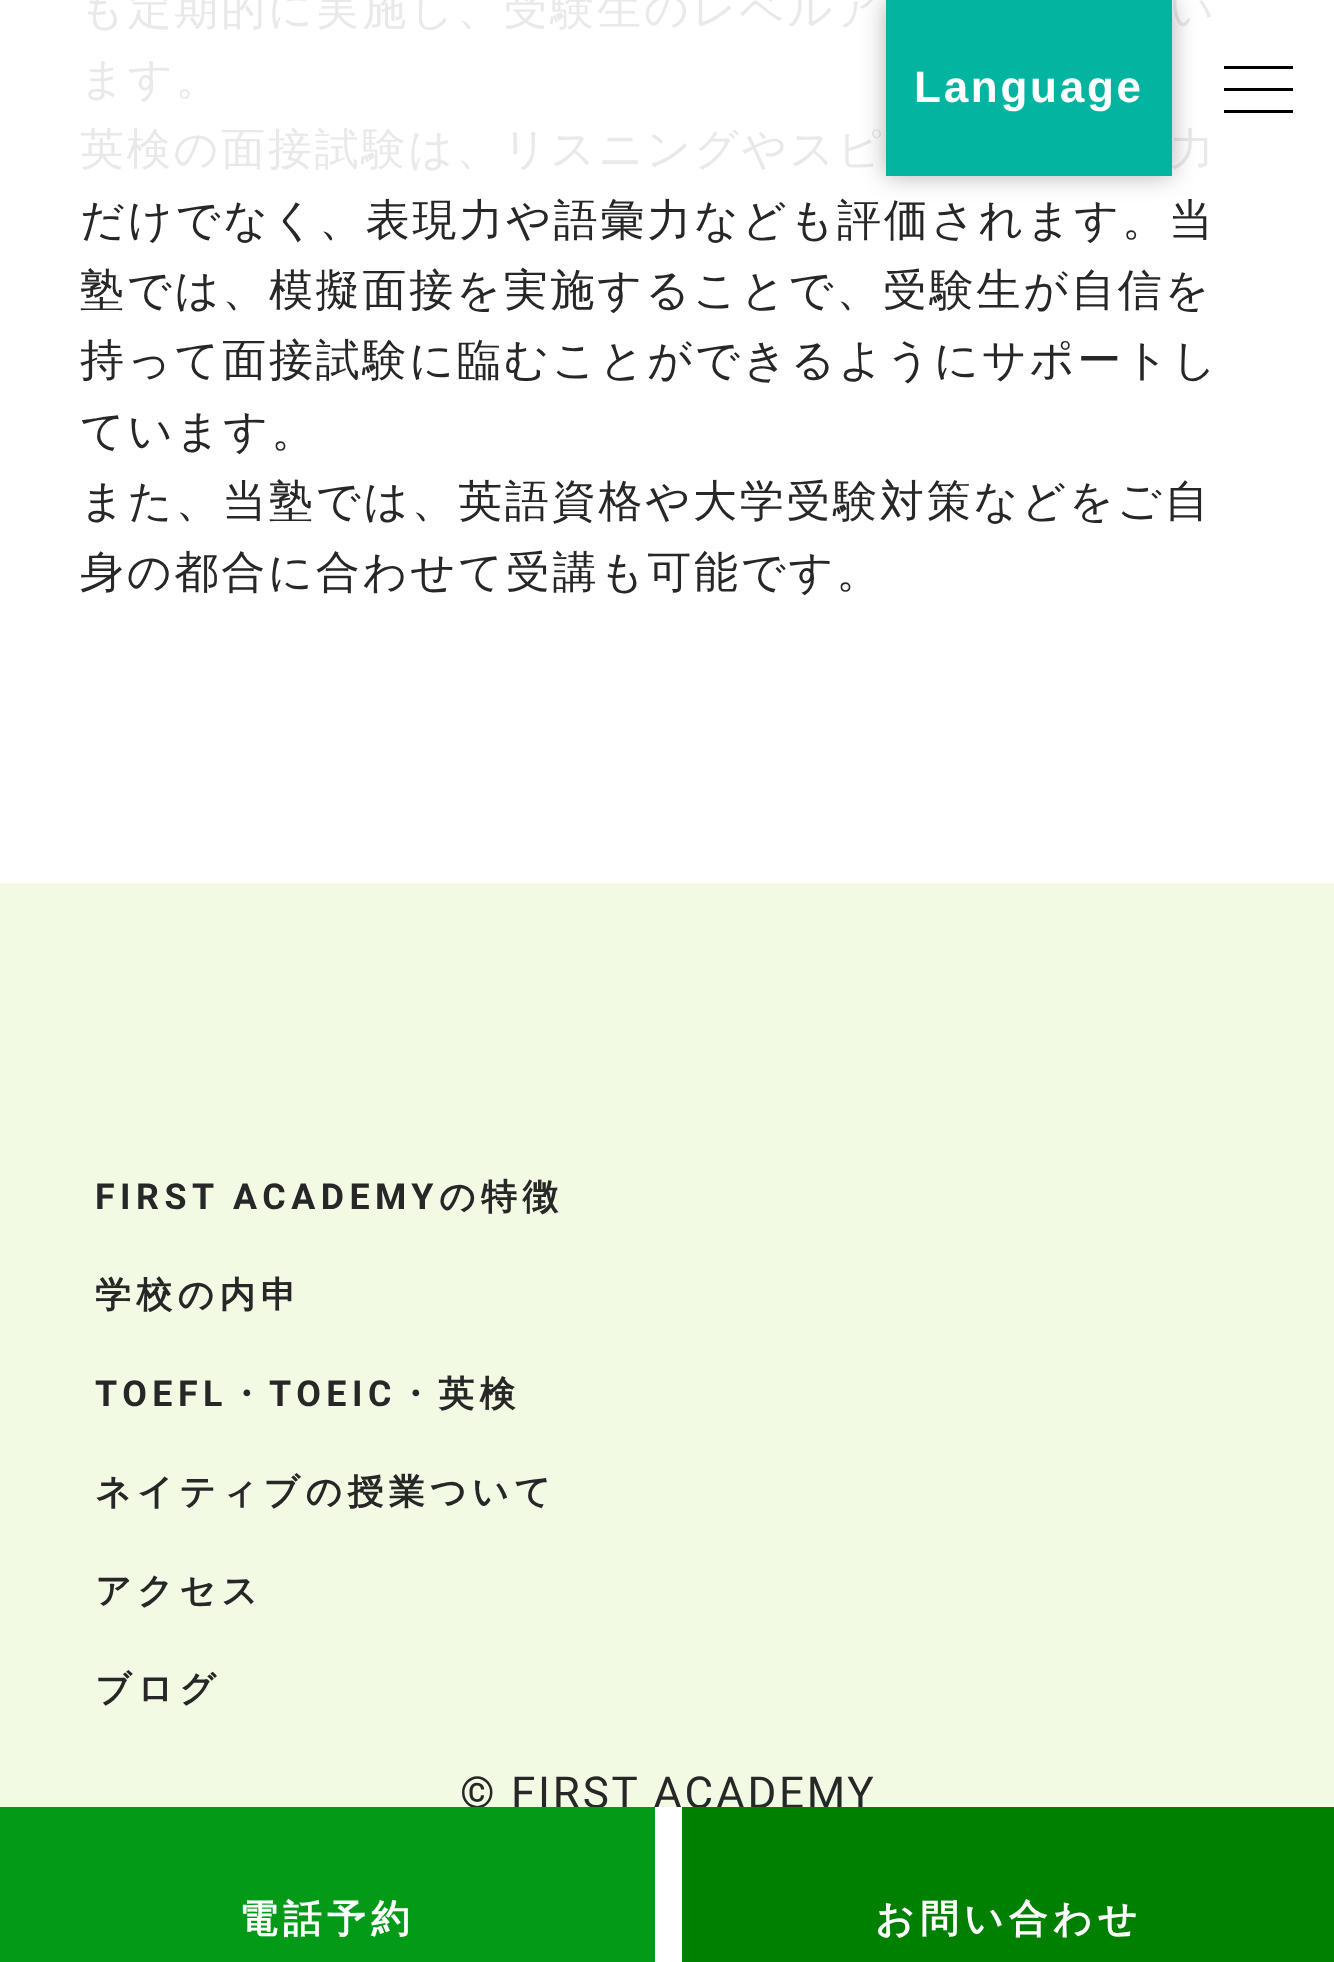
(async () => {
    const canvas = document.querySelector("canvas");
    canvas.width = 1334;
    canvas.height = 1962;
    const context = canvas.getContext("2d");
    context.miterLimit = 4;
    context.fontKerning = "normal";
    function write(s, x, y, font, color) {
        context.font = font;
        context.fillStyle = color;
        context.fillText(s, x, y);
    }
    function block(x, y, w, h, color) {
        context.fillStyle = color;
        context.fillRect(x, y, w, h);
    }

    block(0, 0, 1334, 1962, "rgb(255, 255, 255)");
    context.letterSpacing = "2.75px";
    write("も定期的に実施し、受験生のレベルア", 80, 24, "500 44px WenQuanYi Zen Hei", "rgb(233, 233, 233)");
    write("い", 1169, 24, "500 44px WenQuanYi Zen Hei", "rgb(233, 233, 233)");
    write("ます。", 80, 94, "500 44px WenQuanYi Zen Hei", "rgb(233, 233, 233)");
    write("英検の面接試験は、リスニングやスピ", 80, 164, "500 44px WenQuanYi Zen Hei", "rgb(233, 233, 233)");
    write("力", 1170, 164, "500 44px WenQuanYi Zen Hei", "rgb(233, 233, 233)");
    write("だけでなく、表現力や語彙力なども評価されます。当", 80, 235, "500 44px WenQuanYi Zen Hei", "rgb(39, 39, 39)");
    write("塾では、模擬面接を実施することで、受験生が自信を", 80, 305, "500 44px WenQuanYi Zen Hei", "rgb(39, 39, 39)");
    write("持って面接試験に臨むことができるようにサポートし", 80, 375, "500 44px WenQuanYi Zen Hei", "rgb(39, 39, 39)");
    write("ています。", 80, 446, "500 44px WenQuanYi Zen Hei", "rgb(39, 39, 39)");
    write("また、当塾では、英語資格や大学受験対策などをご自", 80, 516, "500 44px WenQuanYi Zen Hei", "rgb(39, 39, 39)");
    write("身の都合に合わせて受講も可能です。", 80, 587, "500 44px WenQuanYi Zen Hei", "rgb(39, 39, 39)");
    block(1224, 66, 69, 3, "rgb(0, 0, 0)");
    block(1224, 88, 69, 3, "rgb(0, 0, 0)");
    block(1224, 110, 69, 3, "rgb(0, 0, 0)");
    block(0, 883, 1334, 924, "rgb(242, 250, 228)");
    write("© FIRST ACADEMY", 460, 1808, "44px Roboto", "rgb(39, 39, 39)");
    block(655, 1807, 27, 1, "rgb(255, 255, 255)");
    block(0, 1807, 655, 155, "rgb(2, 154, 23)");
    context.letterSpacing = "5.5px";
    write("電話予約", 239, 1932, "bold 38.5px WenQuanYi Zen Hei", "rgb(255, 255, 255)");
    block(682, 1807, 652, 155, "rgb(0, 128, 0)");
    write("お問い合わせ", 875, 1932, "bold 38.5px WenQuanYi Zen Hei", "rgb(255, 255, 255)");
    context.fillStyle = "rgba(0, 0, 0, 0.3)";
    context.filter = "blur(12.5px)";
    context.beginPath();
    context.rect(886, 0, 286, 176);
    context.fill();
    context.filter = "none";
    block(886, 0, 286, 176, "rgb(3, 181, 160)");
    context.letterSpacing = "2.75px";
    write("Language", 914, 102, "bold 44px Liberation Sans", "rgb(255, 255, 255)");
    context.letterSpacing = "5.5px";
    write("FIRST ACADEMY", 95, 1209, "bold 35.75px Roboto", "rgb(39, 39, 39)");
    write("の特徴", 439, 1209, "bold 35.75px WenQuanYi Zen Hei", "rgb(39, 39, 39)");
    write("学校の内申", 95, 1307, "bold 35.75px WenQuanYi Zen Hei", "rgb(39, 39, 39)");
    write("TOEFL", 95, 1406, "bold 35.75px Roboto", "rgb(39, 39, 39)");
    write("・", 228, 1406, "bold 35.75px WenQuanYi Zen Hei", "rgb(39, 39, 39)");
    write("TOEIC", 269, 1406, "bold 35.75px Roboto", "rgb(39, 39, 39)");
    write("・英検", 397, 1406, "bold 35.75px WenQuanYi Zen Hei", "rgb(39, 39, 39)");
    write("ネイティブの授業ついて", 95, 1504, "bold 35.75px WenQuanYi Zen Hei", "rgb(39, 39, 39)");
    write("アクセス", 95, 1603, "bold 35.75px WenQuanYi Zen Hei", "rgb(39, 39, 39)");
    write("ブログ", 95, 1701, "bold 35.75px WenQuanYi Zen Hei", "rgb(39, 39, 39)");
})();
